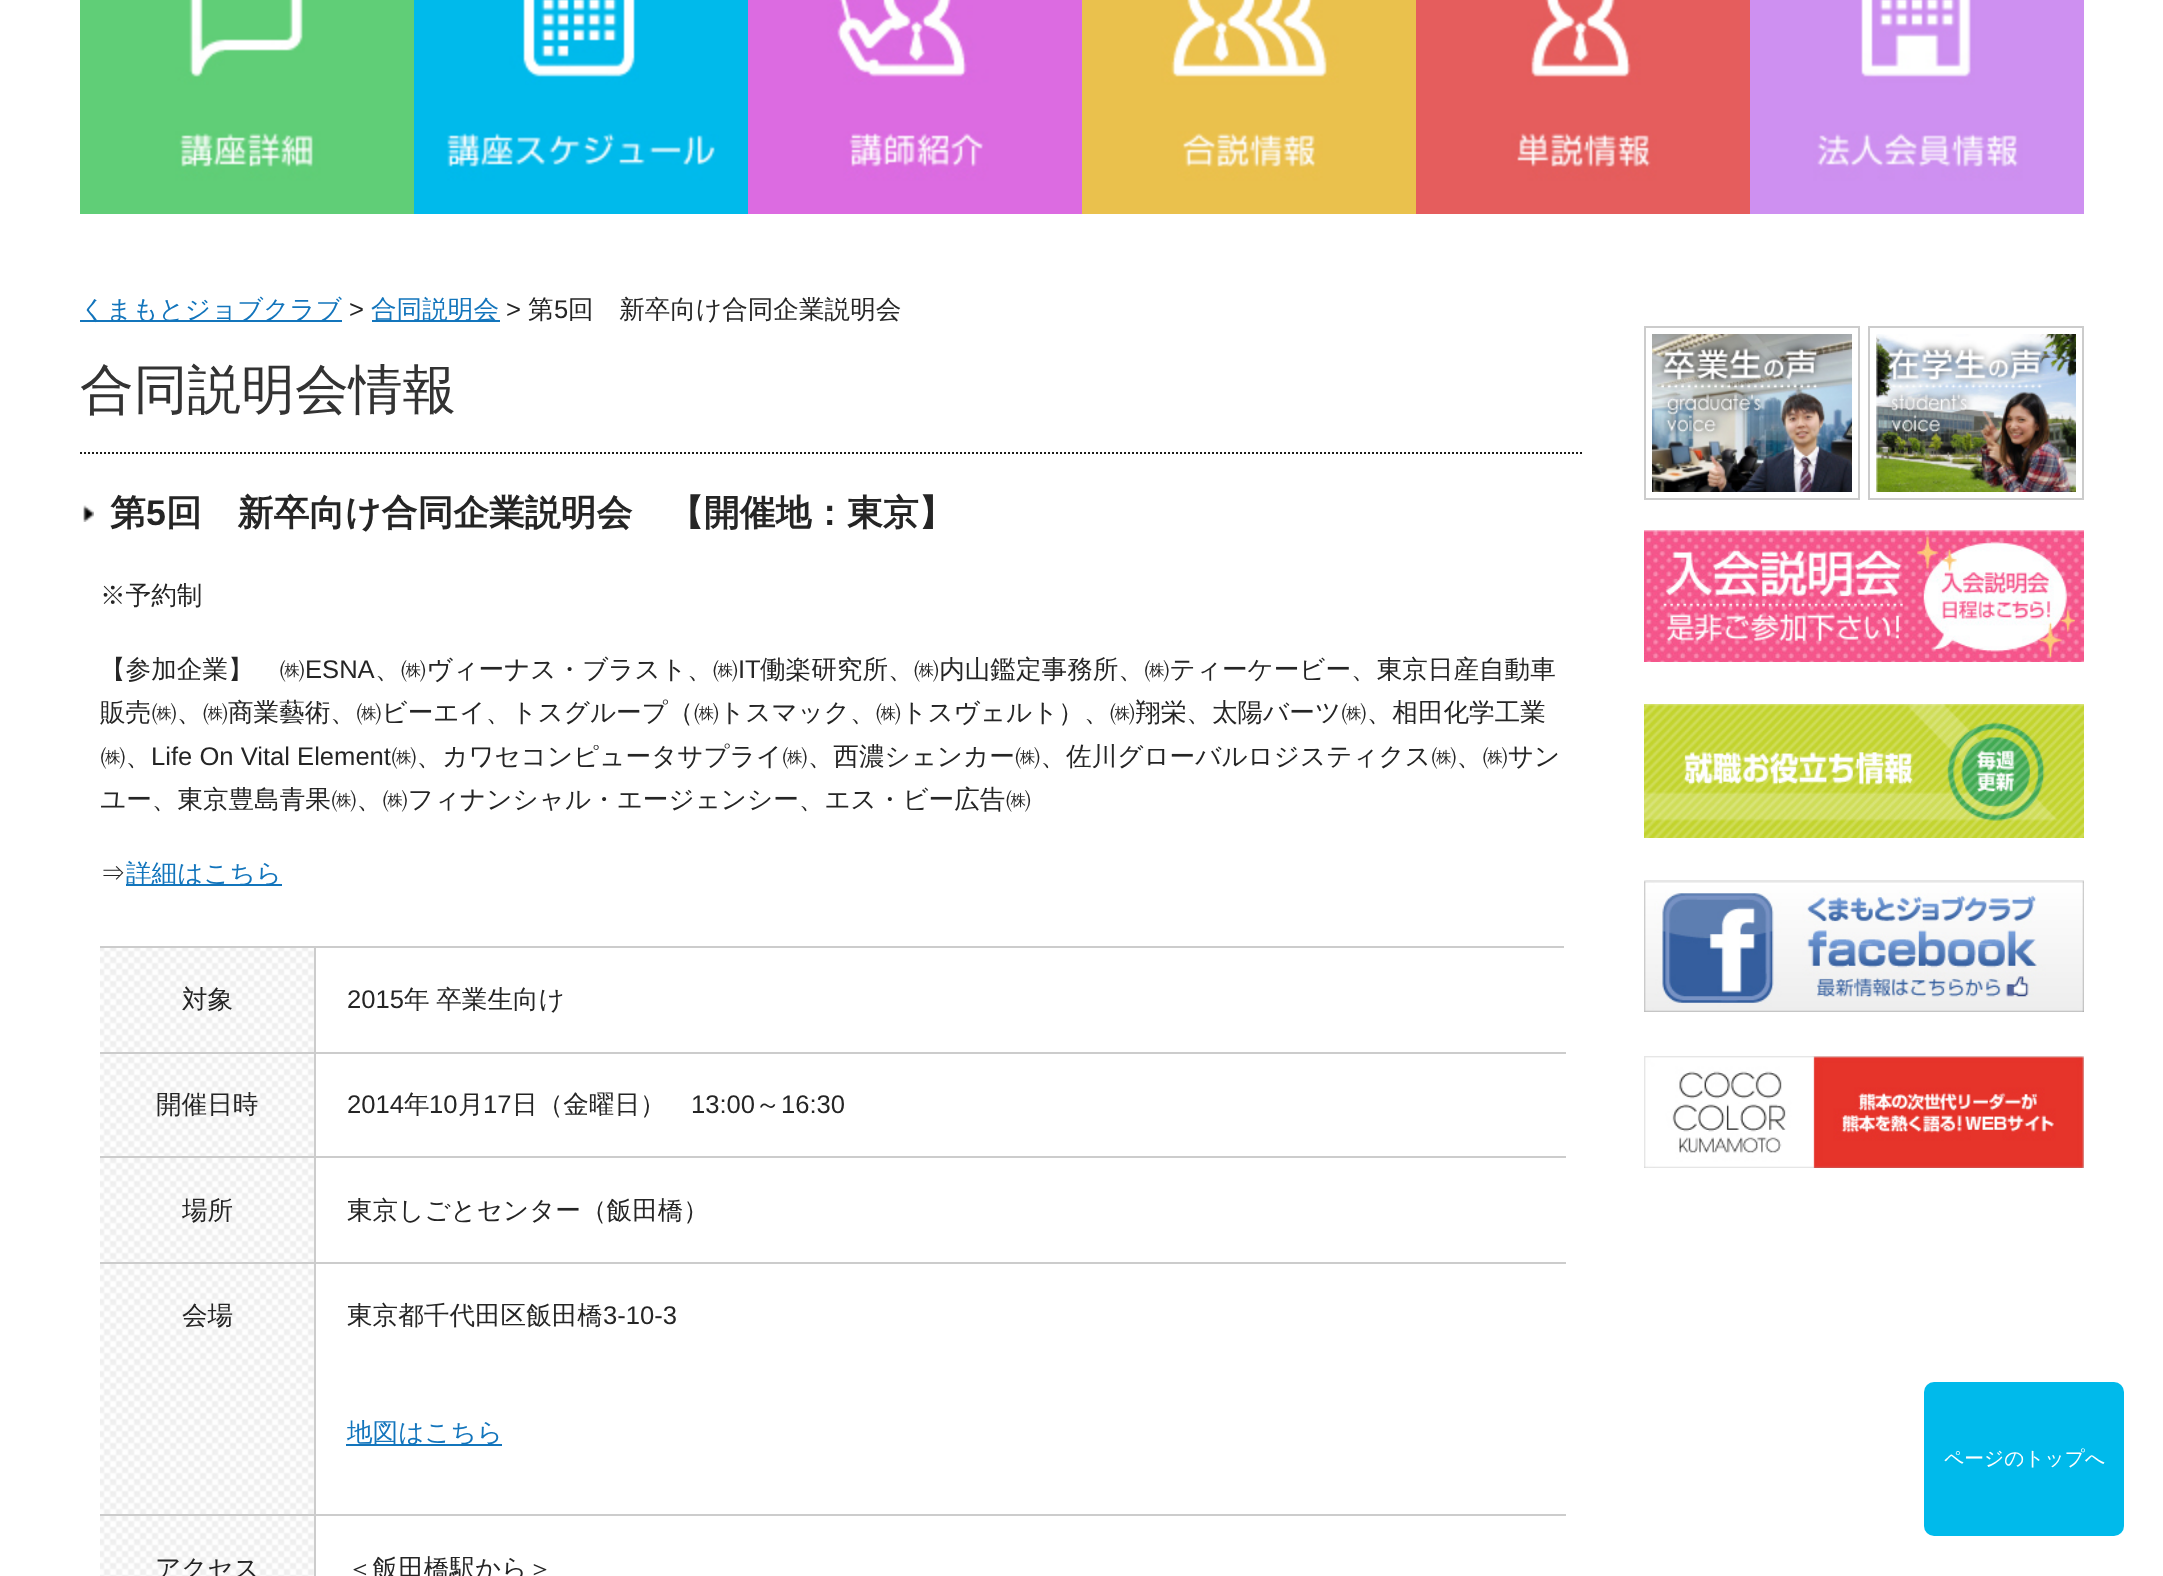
(async () => {
    const canvas = document.querySelector("canvas");
    canvas.width = 2163;
    canvas.height = 1576;
    const context = canvas.getContext("2d");
    context.miterLimit = 4;
    context.fontKerning = "normal";
    function write(s, x, y, font, color) {
        context.font = font;
        context.fillStyle = color;
        context.fillText(s, x, y);
    }
    function block(x, y, w, h, color) {
        context.fillStyle = color;
        context.fillRect(x, y, w, h);
    }
    function card(x, y, w, h, r, color) {
        context.fillStyle = color;
        context.beginPath();
        context.roundRect(x, y, w, h, r);
        context.fill();
    }
    async function photo(src, x, y, w, h) {
        const img = new Image();
        img.src = src;
        await img.decode();
        context.drawImage(img, x, y, w, h);
    }

    block(0, 0, 2163, 1576, "rgb(255, 255, 255)");
    await photo("media/1.png", 80, 0, 334, 214);
    await photo("media/2.png", 414, 0, 334, 214);
    await photo("media/3.png", 748, 0, 334, 214);
    await photo("media/4.png", 1082, 0, 334, 214);
    await photo("media/5.png", 1416, 0, 334, 214);
    await photo("media/6.png", 1750, 0, 334, 214);
    block(80, 320, 262, 2, "rgb(19, 117, 188)");
    write("くまもとジョブクラブ", 80, 318, "500 25.6px WenQuanYi Zen Hei", "rgb(19, 117, 188)");
    write(">", 349, 318, "25.6px Liberation Sans", "rgb(37, 37, 37)");
    block(372, 320, 128, 2, "rgb(19, 117, 188)");
    write("合同説明会", 371, 318, "500 25.6px WenQuanYi Zen Hei", "rgb(19, 117, 188)");
    write(">", 506, 318, "25.6px Liberation Sans", "rgb(37, 37, 37)");
    write("第", 528, 318, "500 25.6px WenQuanYi Zen Hei", "rgb(37, 37, 37)");
    write("5", 554, 318, "25.6px Liberation Sans", "rgb(37, 37, 37)");
    write("回　新卒向け合同企業説明会", 568, 318, "500 25.6px WenQuanYi Zen Hei", "rgb(37, 37, 37)");
    context.beginPath();
    context.moveTo(80, 453);
    context.lineTo(1584, 453);
    context.strokeStyle = "rgb(29, 29, 27)";
    context.lineWidth = 2;
    context.setLineDash([2, 2]);
    context.stroke();
    write("合同説明会情報", 80, 408, "500 53.75px WenQuanYi Zen Hei", "rgb(51, 51, 51)");
    await photo("media/7.png", 83, 505, 11, 17);
    write("第", 110, 525, "bold 35.8px WenQuanYi Zen Hei", "rgb(37, 37, 37)");
    write("5", 146, 525, "bold 35.8px Liberation Sans", "rgb(37, 37, 37)");
    write("回　新卒向け合同企業説明会", 166, 525, "bold 35.8px WenQuanYi Zen Hei", "rgb(37, 37, 37)");
    write("【開催地：東京】", 668, 525, "bold 35.8px WenQuanYi Zen Hei", "rgb(37, 37, 37)");
    write("※予約制", 100, 604, "500 25.6px WenQuanYi Zen Hei", "rgb(37, 37, 37)");
    write("【参加企業】　㈱", 100, 678, "500 25.6px WenQuanYi Zen Hei", "rgb(37, 37, 37)");
    write("ESNA", 305, 678, "25.6px Liberation Sans", "rgb(37, 37, 37)");
    write("、㈱ヴィーナス・ブラスト、㈱", 375, 678, "500 25.6px WenQuanYi Zen Hei", "rgb(37, 37, 37)");
    write("IT", 738, 678, "25.6px Liberation Sans", "rgb(37, 37, 37)");
    write("働楽研究所、㈱内山鑑定事務所、㈱ティーケービー、東京日産自動車", 760, 678, "500 25.6px WenQuanYi Zen Hei", "rgb(37, 37, 37)");
    write("販売㈱、㈱商業藝術、㈱ビーエイ、トスグループ（㈱トスマック、㈱トスヴェルト）、㈱翔栄、太陽バーツ㈱、相田化学工業", 100, 721, "500 25.6px WenQuanYi Zen Hei", "rgb(37, 37, 37)");
    write("㈱、", 100, 765, "500 25.6px WenQuanYi Zen Hei", "rgb(37, 37, 37)");
    write("Life On Vital Element", 151, 765, "25.6px Liberation Sans", "rgb(37, 37, 37)");
    write("㈱、カワセコンピュータサプライ㈱、西濃シェンカー㈱、佐川グローバルロジスティクス㈱、㈱サン", 391, 765, "500 25.6px WenQuanYi Zen Hei", "rgb(37, 37, 37)");
    write("ユー、東京豊島青果㈱、㈱フィナンシャル・エージェンシー、エス・ビー広告㈱", 100, 808, "500 25.6px WenQuanYi Zen Hei", "rgb(37, 37, 37)");
    write("⇒", 100, 882, "500 25.6px WenQuanYi Zen Hei", "rgb(37, 37, 37)");
    block(126, 884, 156, 2, "rgb(19, 117, 188)");
    write("詳細はこちら", 126, 882, "500 25.6px WenQuanYi Zen Hei", "rgb(19, 117, 188)");
    block(100, 946, 1464, 2, "rgb(204, 204, 204)");
    await photo("media/8.png", 100, 948, 214, 104);
    block(314, 1514, 2, 62, "rgb(204, 204, 204)");
    block(314, 1514, 1252, 2, "rgb(204, 204, 204)");
    block(314, 1262, 2, 254, "rgb(204, 204, 204)");
    block(314, 1262, 1252, 2, "rgb(204, 204, 204)");
    block(314, 1156, 2, 108, "rgb(204, 204, 204)");
    block(314, 1156, 1252, 2, "rgb(204, 204, 204)");
    block(314, 1052, 2, 106, "rgb(204, 204, 204)");
    block(314, 1052, 1252, 2, "rgb(204, 204, 204)");
    block(314, 946, 2, 108, "rgb(204, 204, 204)");
    block(100, 1052, 216, 2, "rgb(204, 204, 204)");
    write("対象", 182, 1008, "500 25.6px WenQuanYi Zen Hei", "rgb(37, 37, 37)");
    write("2015", 347, 1008, "25.6px Liberation Sans", "rgb(37, 37, 37)");
    context.wordSpacing = "-1px";
    write("年 卒業生向け", 404, 1008, "500 25.6px WenQuanYi Zen Hei", "rgb(37, 37, 37)");
    await photo("media/9.png", 100, 1054, 214, 102);
    block(100, 1156, 216, 2, "rgb(204, 204, 204)");
    context.wordSpacing = "0px";
    write("開催日時", 156, 1113, "500 25.6px WenQuanYi Zen Hei", "rgb(37, 37, 37)");
    write("2014", 347, 1113, "25.6px Liberation Sans", "rgb(37, 37, 37)");
    write("年", 404, 1113, "500 25.6px WenQuanYi Zen Hei", "rgb(37, 37, 37)");
    write("10", 429, 1113, "25.6px Liberation Sans", "rgb(37, 37, 37)");
    write("月", 458, 1113, "500 25.6px WenQuanYi Zen Hei", "rgb(37, 37, 37)");
    write("17", 483, 1113, "25.6px Liberation Sans", "rgb(37, 37, 37)");
    write("日（金曜日）", 512, 1113, "500 25.6px WenQuanYi Zen Hei", "rgb(37, 37, 37)");
    write("13:00", 691, 1113, "25.6px Liberation Sans", "rgb(37, 37, 37)");
    write("～", 755, 1113, "500 25.6px WenQuanYi Zen Hei", "rgb(37, 37, 37)");
    write("16:30", 781, 1113, "25.6px Liberation Sans", "rgb(37, 37, 37)");
    await photo("media/10.png", 100, 1158, 214, 104);
    block(100, 1262, 216, 2, "rgb(204, 204, 204)");
    write("場所", 182, 1219, "500 25.6px WenQuanYi Zen Hei", "rgb(37, 37, 37)");
    write("東京しごとセンター（飯田橋）", 347, 1219, "500 25.6px WenQuanYi Zen Hei", "rgb(37, 37, 37)");
    await photo("media/11.png", 100, 1264, 214, 250);
    block(100, 1514, 216, 2, "rgb(204, 204, 204)");
    write("会場", 182, 1324, "500 25.6px WenQuanYi Zen Hei", "rgb(37, 37, 37)");
    write("東京都千代田区飯田橋", 347, 1324, "500 25.6px WenQuanYi Zen Hei", "rgb(37, 37, 37)");
    write("3-10-3", 603, 1324, "25.6px Liberation Sans", "rgb(37, 37, 37)");
    block(346, 1444, 156, 2, "rgb(19, 117, 188)");
    write("地図はこちら", 347, 1441, "500 25.6px WenQuanYi Zen Hei", "rgb(19, 117, 188)");
    await photo("media/12.png", 100, 1516, 214, 60);
    write("アクセス", 155, 1577, "500 25.6px WenQuanYi Zen Hei", "rgb(37, 37, 37)");
    write("＜飯田橋駅から＞", 347, 1577, "500 25.6px WenQuanYi Zen Hei", "rgb(37, 37, 37)");
    context.strokeStyle = "rgb(204, 204, 204)";
    context.setLineDash([]);
    context.strokeRect(1645, 327, 214, 172);
    await photo("media/13.png", 1652, 334, 200, 158);
    context.strokeRect(1869, 327, 214, 172);
    await photo("media/14.png", 1876, 334, 200, 158);
    await photo("media/15.png", 1644, 530, 440, 132);
    await photo("media/16.png", 1644, 704, 440, 134);
    await photo("media/17.png", 1644, 880, 440, 132);
    await photo("media/18.png", 1644, 1056, 440, 112);
    card(1924, 1382, 200, 154, 10, "rgb(0, 186, 235)");
    write("ページのトップへ", 1944, 1465, "500 19.75px WenQuanYi Zen Hei", "rgb(255, 255, 255)");
})();
